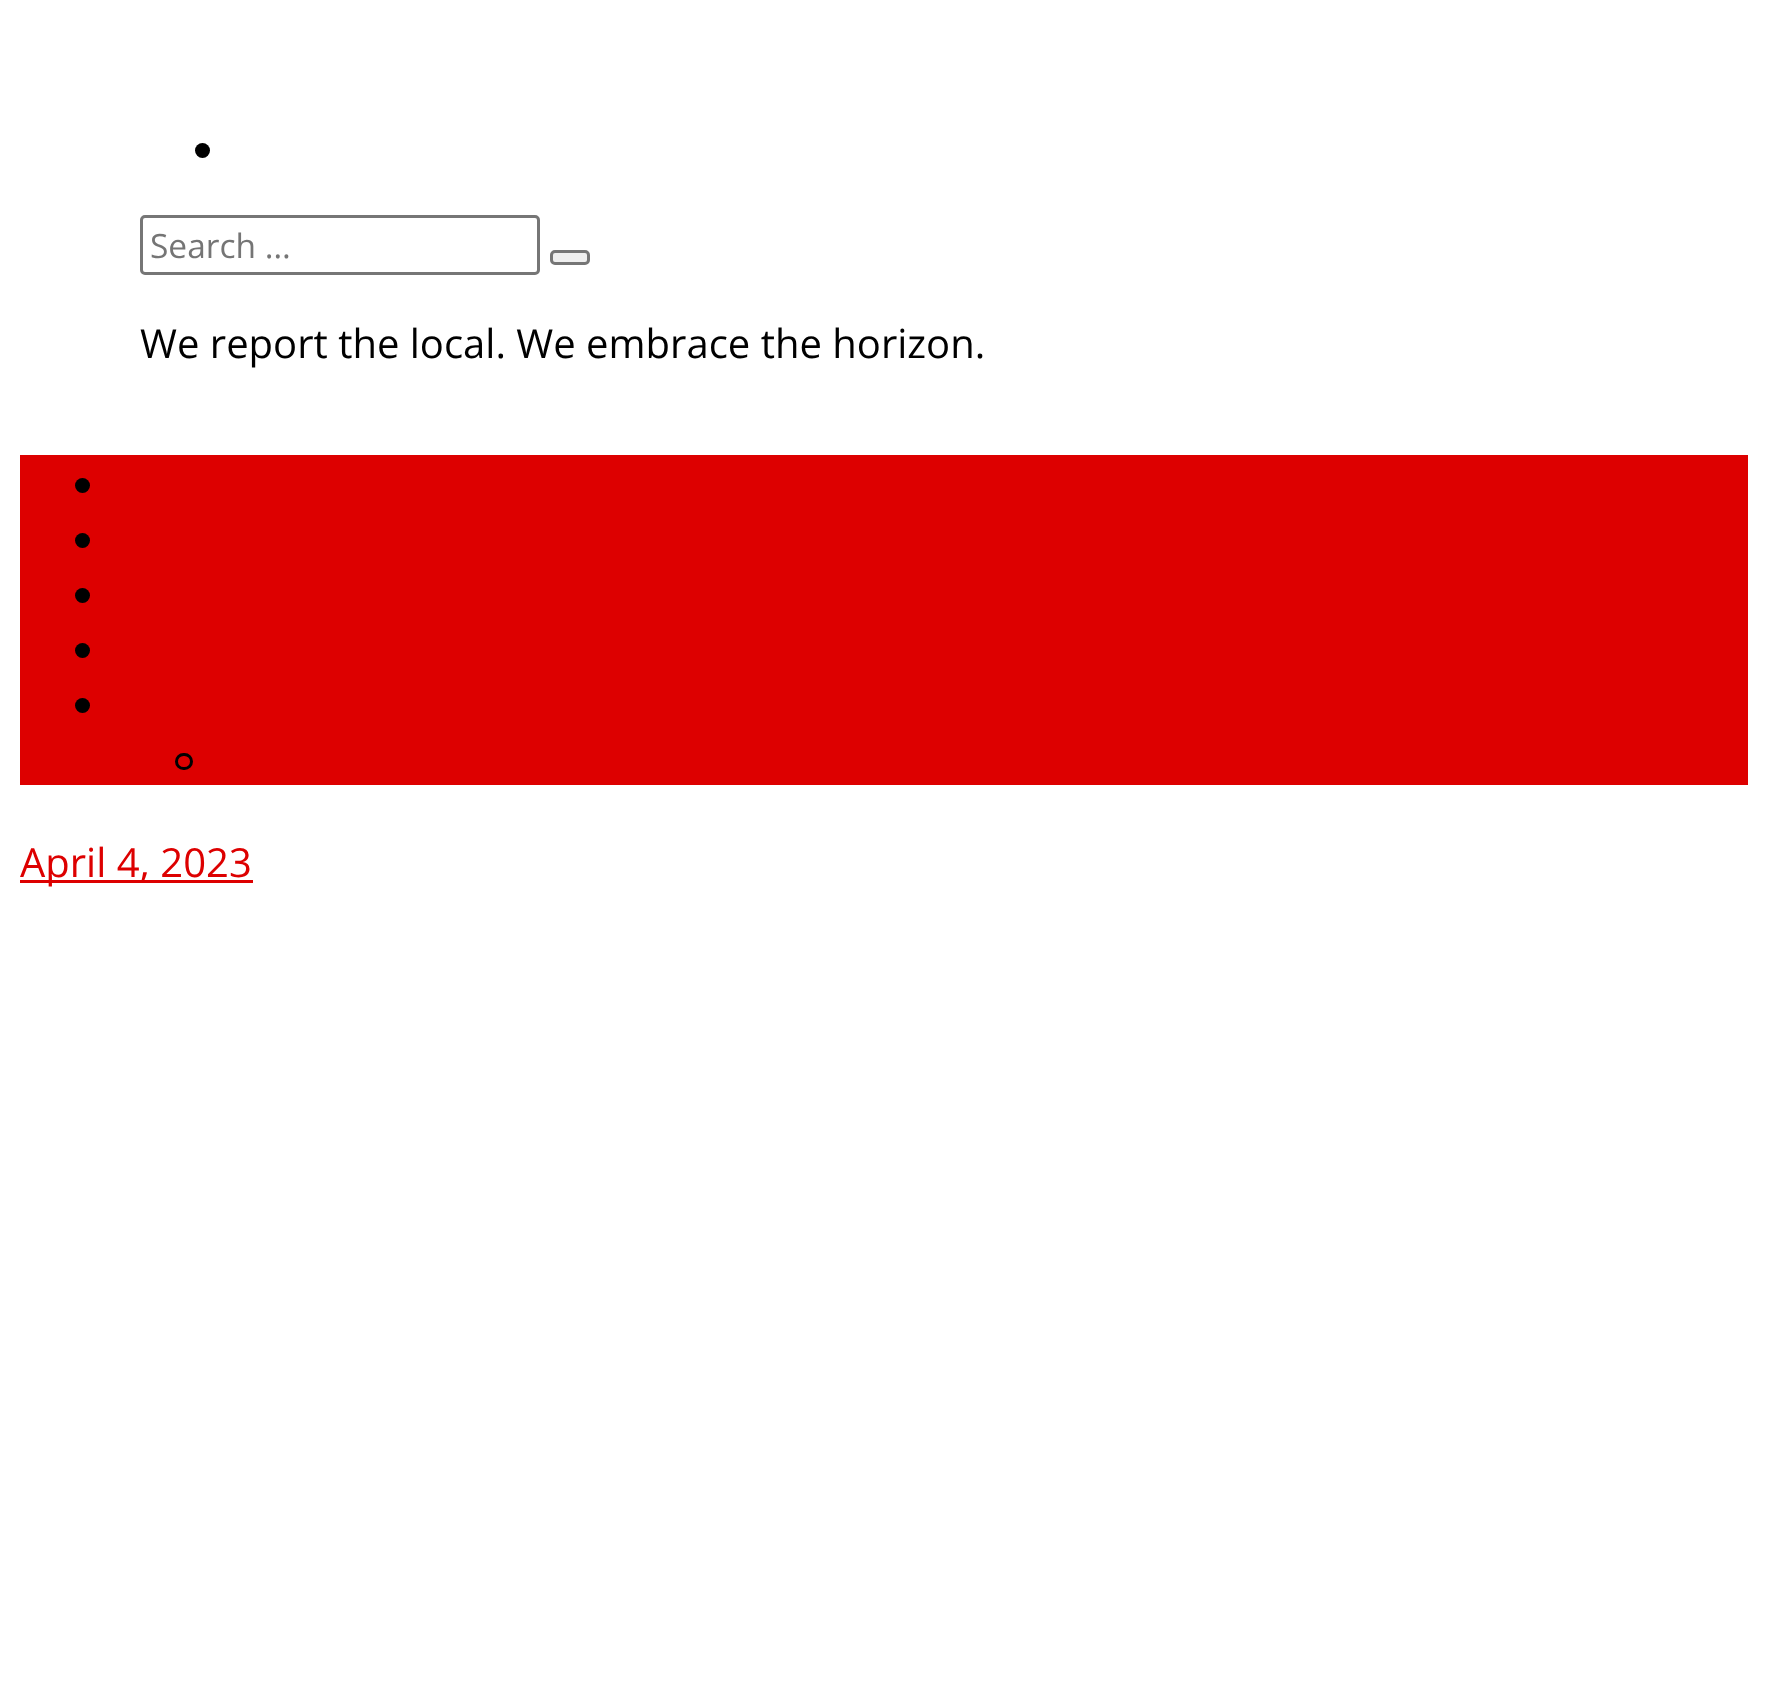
(async () => {
    const canvas = document.querySelector("canvas");
    canvas.width = 1767;
    canvas.height = 1691;
    const context = canvas.getContext("2d");
    context.miterLimit = 4;
    context.fontKerning = "normal";
    function write(s, x, y, font, color) {
        context.font = font;
        context.fillStyle = color;
        context.fillText(s, x, y);
    }
    function block(x, y, w, h, color) {
        context.fillStyle = color;
        context.fillRect(x, y, w, h);
    }

    block(0, 0, 1767, 1691, "rgb(255, 255, 255)");
    context.fillStyle = "rgb(0, 0, 0)";
    context.beginPath();
    context.arc(202.5, 150.5, 7.5, 0, Math.PI * 2);
    context.fill();
    context.beginPath();
    context.roundRect(141.5, 216.5, 397, 57, 3.5);
    context.strokeStyle = "rgb(118, 118, 118)";
    context.lineWidth = 3;
    context.stroke();
    write("Search …", 150, 258, "33.5px Open Sans", "rgb(117, 117, 117)");
    context.fillStyle = "rgb(239, 239, 239)";
    context.beginPath();
    context.roundRect(551.5, 251.5, 37, 12, 3.5);
    context.fill();
    context.stroke();
    write("We report the local. We embrace the horizon.", 140, 358, "40px Open Sans", "rgb(0, 0, 0)");
    block(20, 455, 1728, 330, "rgb(221, 0, 0)");
    context.fillStyle = "rgb(0, 0, 0)";
    context.beginPath();
    context.arc(82.5, 485.5, 7.5, 0, Math.PI * 2);
    context.fill();
    context.beginPath();
    context.arc(82.5, 540.5, 7.5, 0, Math.PI * 2);
    context.fill();
    context.beginPath();
    context.arc(82.5, 595.5, 7.5, 0, Math.PI * 2);
    context.fill();
    context.beginPath();
    context.arc(82.5, 650.5, 7.5, 0, Math.PI * 2);
    context.fill();
    context.beginPath();
    context.arc(82.5, 705.5, 7.5, 0, Math.PI * 2);
    context.fill();
    context.beginPath();
    context.roundRect(176.5, 754.5, 15, 14, 7);
    context.strokeStyle = "rgb(0, 0, 0)";
    context.stroke();
    block(20, 880, 233, 3, "rgb(221, 0, 0)");
    write("April 4, 2023", 20, 877, "40px Open Sans", "rgb(221, 0, 0)");
})();
